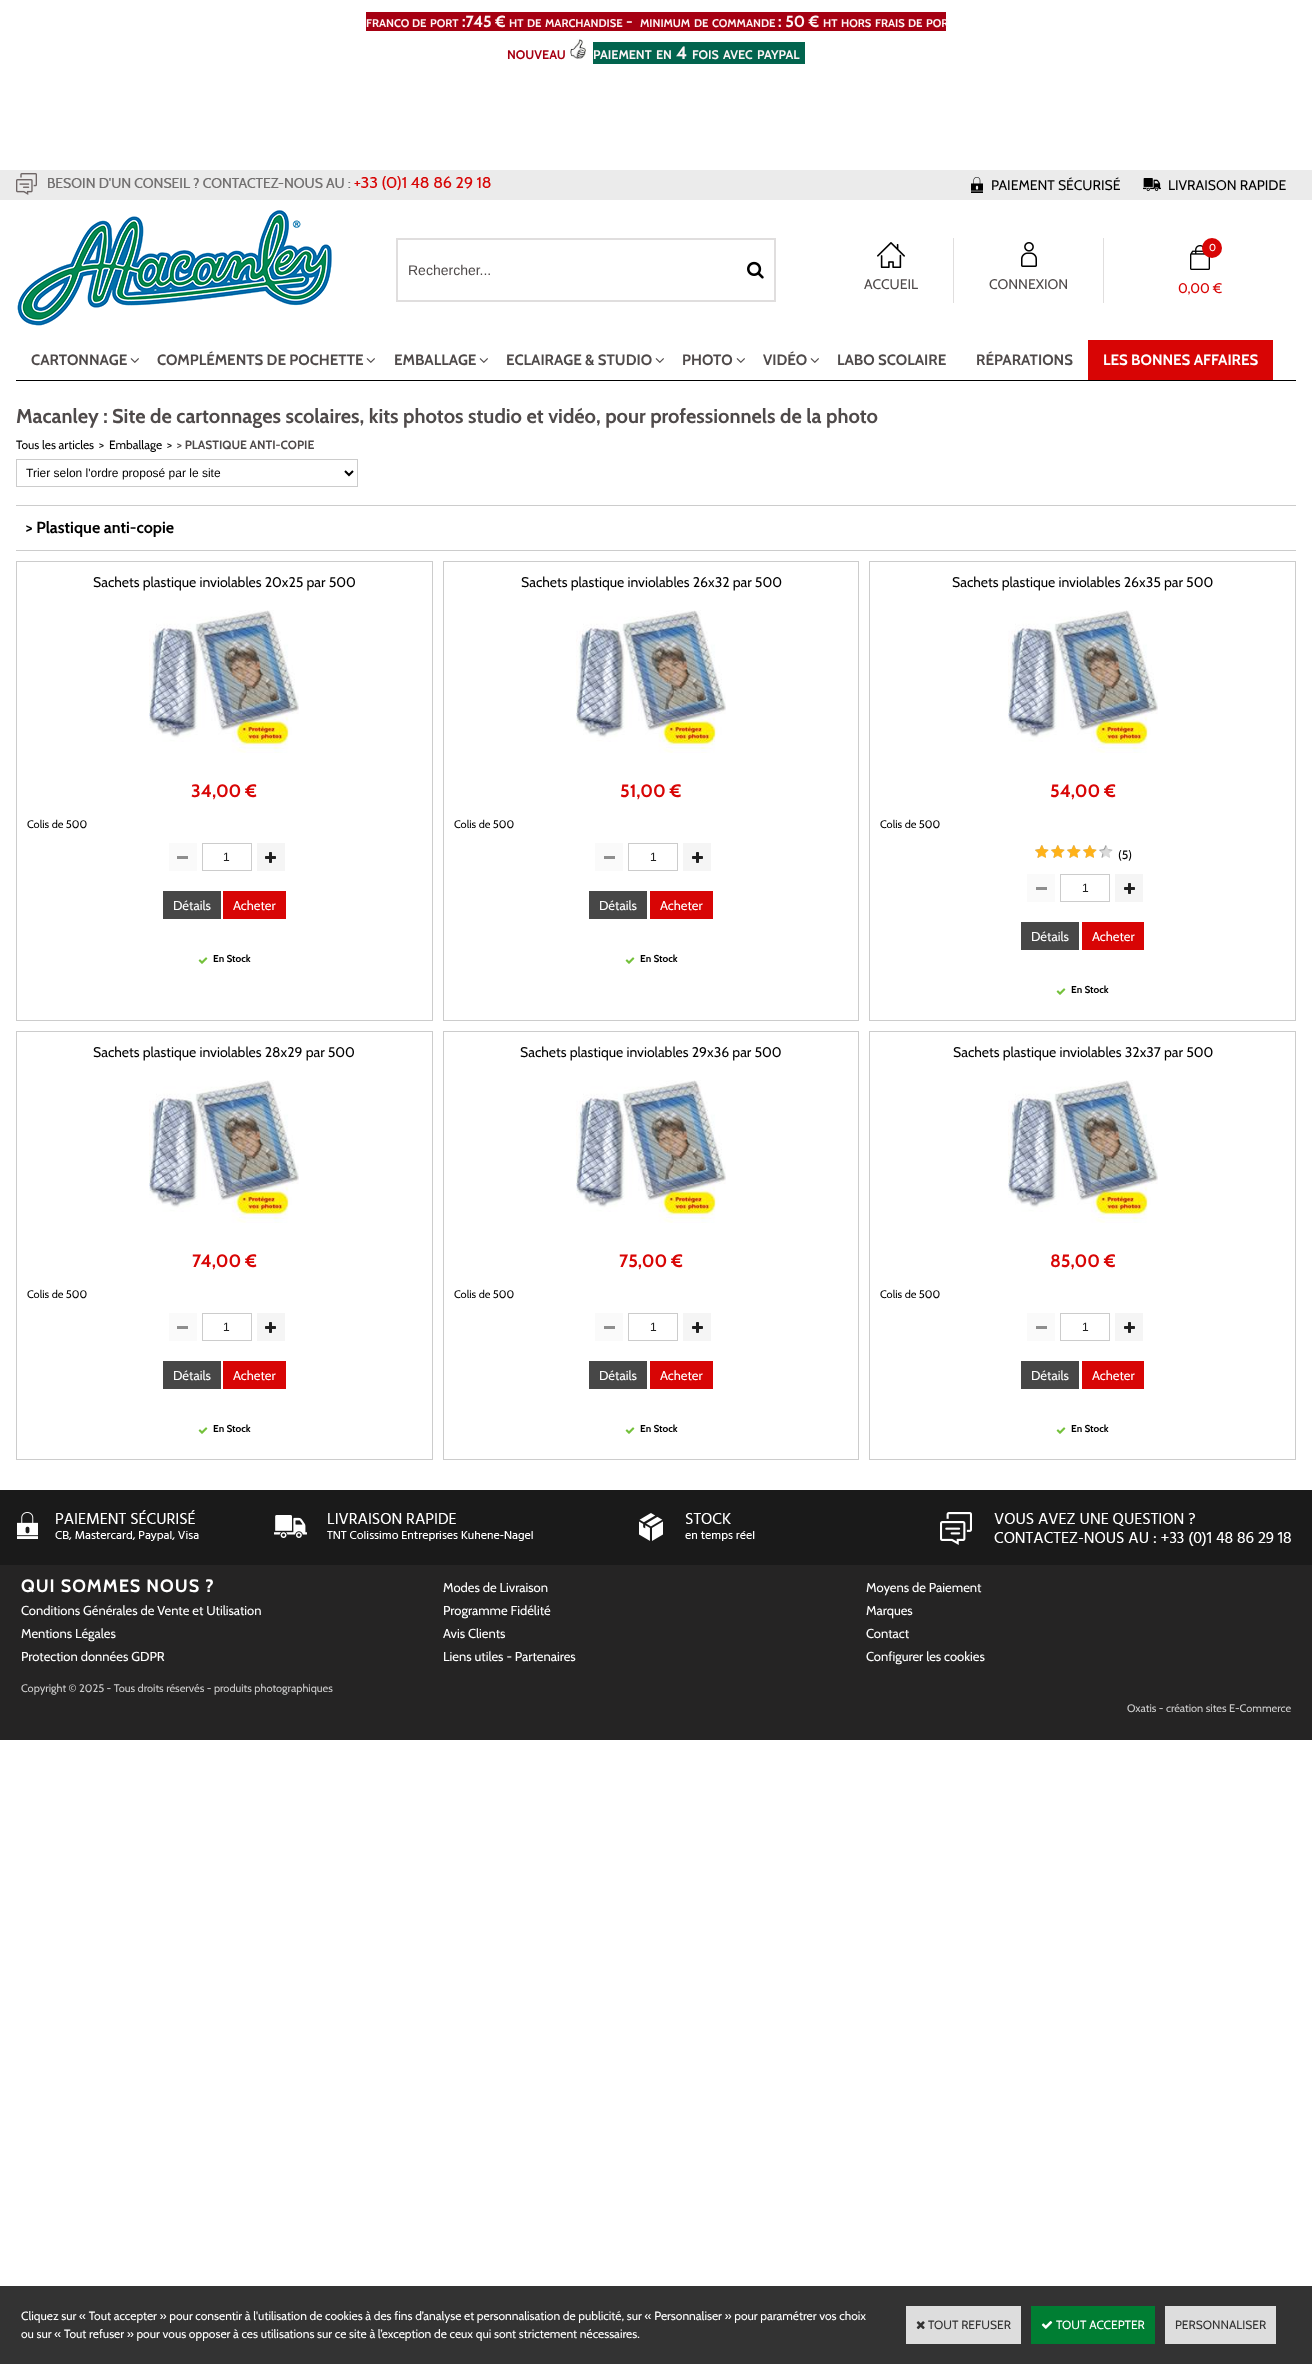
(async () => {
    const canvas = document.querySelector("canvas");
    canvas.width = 1312;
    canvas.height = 2364;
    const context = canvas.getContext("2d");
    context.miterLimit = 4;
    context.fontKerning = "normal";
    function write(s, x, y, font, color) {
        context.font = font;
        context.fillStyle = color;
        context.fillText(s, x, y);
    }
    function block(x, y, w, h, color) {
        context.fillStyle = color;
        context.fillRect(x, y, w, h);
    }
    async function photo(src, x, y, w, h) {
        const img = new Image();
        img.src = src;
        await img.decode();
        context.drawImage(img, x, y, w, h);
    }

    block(0, 0, 1312, 2364, "rgb(255, 255, 255)");
    block(366, 12, 580, 19, "rgb(166, 0, 18)");
    write("FRANCO", 366, 27, "bold 11.25px Cabin", "rgb(254, 245, 246)");
    write("DE", 412, 27, "bold 11.25px Cabin", "rgb(254, 245, 246)");
    write("PORT", 430, 27, "bold 11.25px Cabin", "rgb(254, 245, 246)");
    write(":745 €", 462, 27, "bold 16px Cabin", "rgb(254, 245, 246)");
    write("HT", 509, 27, "bold 11.25px Cabin", "rgb(254, 245, 246)");
    write("DE", 527, 27, "bold 11.25px Cabin", "rgb(254, 245, 246)");
    write("MARCHANDISE", 545, 27, "bold 11.25px Cabin", "rgb(254, 245, 246)");
    write("-", 626, 27, "bold 16px Cabin", "rgb(254, 245, 246)");
    write("MINIMUM", 640, 27, "bold 11.25px Cabin", "rgb(254, 245, 246)");
    write("DE", 694, 27, "bold 11.25px Cabin", "rgb(254, 245, 246)");
    write("COMMANDE", 712, 27, "bold 11.25px Cabin", "rgb(254, 245, 246)");
    write(": 50 €", 778, 27, "bold 16px Cabin", "rgb(254, 245, 246)");
    write("HT", 823, 27, "bold 11.25px Cabin", "rgb(254, 245, 246)");
    write("HORS", 841, 27, "bold 11.25px Cabin", "rgb(254, 245, 246)");
    write("FRAIS", 875, 27, "bold 11.25px Cabin", "rgb(254, 245, 246)");
    write("DE", 908, 27, "bold 11.25px Cabin", "rgb(254, 245, 246)");
    write("POR", 926, 27, "bold 11.25px Cabin", "rgb(254, 245, 246)");
    write("NOUVEAU", 507, 59, "bold 12.5px Cabin", "rgb(166, 0, 18)");
    await photo("media/1.png", 570, 39, 16, 20);
    block(593, 42, 212, 22, "rgb(2, 100, 78)");
    write("PAIEMENT", 593, 59, "bold 12.5px Cabin", "rgb(254, 245, 246)");
    write("EN", 656, 59, "bold 12.5px Cabin", "rgb(254, 245, 246)");
    write("4", 676, 59, "bold 18px Cabin", "rgb(254, 245, 246)");
    write("FOIS", 692, 59, "bold 12.5px Cabin", "rgb(254, 245, 246)");
    write("AVEC", 723, 59, "bold 12.5px Cabin", "rgb(254, 245, 246)");
    write("PAYPAL", 757, 59, "bold 12.5px Cabin", "rgb(254, 245, 246)");
    block(0, 170, 1312, 30, "rgb(235, 235, 235)");
    block(16, 380, 1280, 1, "rgb(0, 0, 0)");
    await photo("media/2.png", 16, 173, 475, 22);
    await photo("media/3.png", 971, 177, 12, 16);
    write("PAIEMENT SÉCURISÉ", 991, 190, "14px Cabin", "rgb(0, 0, 0)");
    await photo("media/4.png", 1143, 178, 18, 13);
    write("LIVRAISON RAPIDE", 1168, 190, "14px Cabin", "rgb(0, 0, 0)");
    await photo("media/5.png", 17, 210, 315, 116);
    context.strokeStyle = "rgb(224, 222, 222)";
    context.lineWidth = 2;
    context.strokeRect(397, 239, 378, 62);
    write("Rechercher...", 408, 275, "14px Liberation Sans", "rgb(79, 74, 74)");
    await photo("media/6.png", 747, 261, 17, 18);
    await photo("media/7.png", 1190, 245, 20, 25);
    context.fillStyle = "rgb(216, 5, 5)";
    context.beginPath();
    context.arc(1212, 248, 10, 0, Math.PI * 2);
    context.fill();
    write("0", 1209, 251, "10px Cabin", "rgb(255, 255, 255)");
    write("0,00 €", 1178, 293, "14px Cabin", "rgb(216, 5, 5)");
    await photo("media/8.png", 877, 242, 28, 26);
    block(953, 238, 1, 65, "rgb(224, 222, 222)");
    write("ACCUEIL", 864, 289, "14px Cabin", "rgb(79, 74, 74)");
    await photo("media/9.png", 1021, 242, 16, 25);
    block(1103, 238, 1, 65, "rgb(224, 222, 222)");
    write("CONNEXION", 989, 289, "14px Cabin", "rgb(79, 74, 74)");
    write("CARTONNAGE", 31, 365, "bold 15px Cabin", "rgb(79, 74, 74)");
    await photo("media/10.png", 130, 358, 9, 5);
    write("COMPLÉMENTS DE POCHETTE", 157, 365, "bold 15px Cabin", "rgb(79, 74, 74)");
    await photo("media/10.png", 366, 358, 9, 5);
    write("EMBALLAGE", 394, 365, "bold 15px Cabin", "rgb(79, 74, 74)");
    await photo("media/10.png", 479, 358, 9, 5);
    write("ECLAIRAGE & STUDIO", 506, 365, "bold 15px Cabin", "rgb(79, 74, 74)");
    await photo("media/10.png", 655, 358, 9, 5);
    write("PHOTO", 682, 365, "bold 15px Cabin", "rgb(79, 74, 74)");
    await photo("media/10.png", 736, 358, 9, 5);
    write("VIDÉO", 763, 365, "bold 15px Cabin", "rgb(79, 74, 74)");
    await photo("media/10.png", 810, 358, 9, 5);
    write("LABO SCOLAIRE", 837, 365, "bold 15px Cabin", "rgb(79, 74, 74)");
    write("RÉPARATIONS", 976, 365, "bold 15px Cabin", "rgb(79, 74, 74)");
    block(1088, 340, 185, 40, "rgb(216, 5, 5)");
    write("LES BONNES AFFAIRES", 1103, 365, "bold 15px Cabin", "rgb(255, 255, 255)");
    write("Macanley : Site de cartonnages scolaires, kits photos studio et vidéo, pour professionnels de la photo", 16, 423, "bold 20px Cabin", "rgb(79, 74, 74)");
    write("Tous les articles", 16, 449, "12px Cabin", "rgb(0, 0, 0)");
    write(">", 99, 449, "12px Cabin", "rgb(0, 0, 0)");
    write("Emballage", 109, 449, "12px Cabin", "rgb(0, 0, 0)");
    write(">", 167, 449, "12px Cabin", "rgb(0, 0, 0)");
    write("> PLASTIQUE ANTI-COPIE", 177, 449, "bold 12px Cabin", "rgb(79, 74, 74)");
    context.strokeStyle = "rgb(204, 204, 204)";
    context.lineWidth = 1;
    context.strokeRect(16.5, 459.5, 341, 27);
    context.beginPath();
    context.moveTo(345, 471);
    context.lineTo(349, 475);
    context.lineTo(353, 471);
    context.strokeStyle = "rgb(0, 0, 0)";
    context.lineWidth = 2;
    context.stroke();
    write("Trier selon l'ordre proposé par le site", 26, 477, "12px Liberation Sans", "rgb(0, 0, 0)");
    block(16, 505, 1280, 1, "rgb(204, 204, 204)");
    block(16, 550, 1280, 1, "rgb(204, 204, 204)");
    write("> Plastique anti-copie", 26, 533, "bold 16px Cabin", "rgb(0, 0, 0)");
    context.strokeStyle = "rgb(204, 204, 204)";
    context.lineWidth = 1;
    context.strokeRect(16.5, 561.5, 416, 459);
    write("Sachets plastique inviolables 20x25 par 500", 93, 587, "14px Cabin", "rgb(0, 0, 0)");
    await photo("media/11.png", 149, 610, 150, 143);
    write("34,00 €", 191, 797, "bold 18px Cabin", "rgb(216, 5, 5)");
    write("Colis de 500", 27, 828, "11px Cabin", "rgb(0, 0, 0)");
    block(169, 843, 28, 28, "rgb(250, 250, 250)");
    block(177, 856, 11, 3, "rgb(142, 142, 142)");
    context.strokeRect(202.5, 843.5, 49, 27);
    write("1", 223, 861, "12px Liberation Sans", "rgb(33, 33, 33)");
    block(257, 843, 28, 28, "rgb(245, 245, 245)");
    await photo("media/12.png", 265, 852, 11, 11);
    block(163, 891, 58, 28, "rgb(71, 71, 71)");
    write("Détails", 173, 910, "13px Cabin", "rgb(255, 255, 255)");
    block(223, 891, 63, 28, "rgb(216, 5, 5)");
    write("Acheter", 233, 910, "13px Cabin", "rgb(255, 255, 255)");
    await photo("media/13.png", 198, 957, 10, 7);
    write("En Stock", 213, 962, "bold 10px Cabin", "rgb(0, 0, 0)");
    context.strokeRect(443.5, 561.5, 415, 459);
    write("Sachets plastique inviolables 26x32 par 500", 521, 587, "14px Cabin", "rgb(0, 0, 0)");
    await photo("media/14.png", 576, 610, 150, 143);
    write("51,00 €", 620, 797, "bold 18px Cabin", "rgb(216, 5, 5)");
    write("Colis de 500", 454, 828, "11px Cabin", "rgb(0, 0, 0)");
    block(595, 843, 28, 28, "rgb(250, 250, 250)");
    block(604, 856, 11, 3, "rgb(142, 142, 142)");
    context.strokeRect(628.5, 843.5, 49, 27);
    write("1", 650, 861, "12px Liberation Sans", "rgb(33, 33, 33)");
    block(683, 843, 28, 28, "rgb(245, 245, 245)");
    await photo("media/12.png", 692, 852, 11, 11);
    block(589, 891, 58, 28, "rgb(71, 71, 71)");
    write("Détails", 599, 910, "13px Cabin", "rgb(255, 255, 255)");
    block(650, 891, 63, 28, "rgb(216, 5, 5)");
    write("Acheter", 660, 910, "13px Cabin", "rgb(255, 255, 255)");
    await photo("media/13.png", 625, 957, 10, 7);
    write("En Stock", 640, 962, "bold 10px Cabin", "rgb(0, 0, 0)");
    context.strokeRect(869.5, 561.5, 426, 459);
    write("Sachets plastique inviolables 26x35 par 500", 952, 587, "14px Cabin", "rgb(0, 0, 0)");
    await photo("media/11.png", 1008, 610, 150, 143);
    write("54,00 €", 1050, 797, "bold 18px Cabin", "rgb(216, 5, 5)");
    write("Colis de 500", 880, 828, "11px Cabin", "rgb(0, 0, 0)");
    await photo("media/15.png", 1035, 845, 78, 13);
    await photo("media/16.png", 1035, 845, 62, 13);
    write("(5)", 1118, 859, "12px Cabin", "rgb(0, 0, 0)");
    block(1027, 874, 28, 28, "rgb(250, 250, 250)");
    block(1036, 887, 11, 3, "rgb(142, 142, 142)");
    context.strokeRect(1060.5, 874.5, 49, 27);
    write("1", 1082, 892, "12px Liberation Sans", "rgb(33, 33, 33)");
    block(1115, 874, 28, 28, "rgb(245, 245, 245)");
    await photo("media/12.png", 1124, 883, 11, 11);
    block(1021, 922, 58, 28, "rgb(71, 71, 71)");
    write("Détails", 1031, 941, "13px Cabin", "rgb(255, 255, 255)");
    block(1082, 922, 62, 28, "rgb(216, 5, 5)");
    write("Acheter", 1092, 941, "13px Cabin", "rgb(255, 255, 255)");
    await photo("media/13.png", 1056, 988, 10, 7);
    write("En Stock", 1071, 993, "bold 10px Cabin", "rgb(0, 0, 0)");
    context.strokeRect(16.5, 1031.5, 416, 428);
    write("Sachets plastique inviolables 28x29 par 500", 93, 1057, "14px Cabin", "rgb(0, 0, 0)");
    await photo("media/11.png", 149, 1080, 150, 143);
    write("74,00 €", 192, 1267, "bold 18px Cabin", "rgb(216, 5, 5)");
    write("Colis de 500", 27, 1298, "11px Cabin", "rgb(0, 0, 0)");
    block(169, 1313, 28, 28, "rgb(250, 250, 250)");
    block(177, 1326, 11, 3, "rgb(142, 142, 142)");
    context.strokeRect(202.5, 1313.5, 49, 27);
    write("1", 223, 1331, "12px Liberation Sans", "rgb(33, 33, 33)");
    block(257, 1313, 28, 28, "rgb(245, 245, 245)");
    await photo("media/12.png", 265, 1322, 11, 11);
    block(163, 1361, 58, 28, "rgb(71, 71, 71)");
    write("Détails", 173, 1380, "13px Cabin", "rgb(255, 255, 255)");
    block(223, 1361, 63, 28, "rgb(216, 5, 5)");
    write("Acheter", 233, 1380, "13px Cabin", "rgb(255, 255, 255)");
    await photo("media/13.png", 198, 1427, 10, 7);
    write("En Stock", 213, 1432, "bold 10px Cabin", "rgb(0, 0, 0)");
    context.strokeRect(443.5, 1031.5, 415, 428);
    write("Sachets plastique inviolables 29x36 par 500", 520, 1057, "14px Cabin", "rgb(0, 0, 0)");
    await photo("media/17.png", 576, 1080, 150, 143);
    write("75,00 €", 619, 1267, "bold 18px Cabin", "rgb(216, 5, 5)");
    write("Colis de 500", 454, 1298, "11px Cabin", "rgb(0, 0, 0)");
    block(595, 1313, 28, 28, "rgb(250, 250, 250)");
    block(604, 1326, 11, 3, "rgb(142, 142, 142)");
    context.strokeRect(628.5, 1313.5, 49, 27);
    write("1", 650, 1331, "12px Liberation Sans", "rgb(33, 33, 33)");
    block(683, 1313, 28, 28, "rgb(245, 245, 245)");
    await photo("media/12.png", 692, 1322, 11, 11);
    block(589, 1361, 58, 28, "rgb(71, 71, 71)");
    write("Détails", 599, 1380, "13px Cabin", "rgb(255, 255, 255)");
    block(650, 1361, 63, 28, "rgb(216, 5, 5)");
    write("Acheter", 660, 1380, "13px Cabin", "rgb(255, 255, 255)");
    await photo("media/13.png", 625, 1427, 10, 7);
    write("En Stock", 640, 1432, "bold 10px Cabin", "rgb(0, 0, 0)");
    context.strokeRect(869.5, 1031.5, 426, 428);
    write("Sachets plastique inviolables 32x37 par 500", 953, 1057, "14px Cabin", "rgb(0, 0, 0)");
    await photo("media/11.png", 1008, 1080, 150, 143);
    write("85,00 €", 1050, 1267, "bold 18px Cabin", "rgb(216, 5, 5)");
    write("Colis de 500", 880, 1298, "11px Cabin", "rgb(0, 0, 0)");
    block(1027, 1313, 28, 28, "rgb(250, 250, 250)");
    block(1036, 1326, 11, 3, "rgb(142, 142, 142)");
    context.strokeRect(1060.5, 1313.5, 49, 27);
    write("1", 1082, 1331, "12px Liberation Sans", "rgb(33, 33, 33)");
    block(1115, 1313, 28, 28, "rgb(245, 245, 245)");
    await photo("media/12.png", 1124, 1322, 11, 11);
    block(1021, 1361, 58, 28, "rgb(71, 71, 71)");
    write("Détails", 1031, 1380, "13px Cabin", "rgb(255, 255, 255)");
    block(1082, 1361, 62, 28, "rgb(216, 5, 5)");
    write("Acheter", 1092, 1380, "13px Cabin", "rgb(255, 255, 255)");
    await photo("media/13.png", 1056, 1427, 10, 7);
    write("En Stock", 1071, 1432, "bold 10px Cabin", "rgb(0, 0, 0)");
    block(0, 1565, 1312, 175, "rgb(37, 36, 36)");
    block(0, 1490, 1312, 75, "rgb(26, 26, 26)");
    await photo("media/18.png", 17, 1510, 182, 31);
    await photo("media/19.png", 274, 1513, 259, 28);
    await photo("media/20.png", 639, 1513, 116, 28);
    await photo("media/21.png", 940, 1512, 351, 34);
    context.letterSpacing = "1px";
    write("QUI SOMMES NOUS ?", 21, 1592, "bold 18px Cabin", "rgb(255, 255, 255)");
    context.letterSpacing = "0px";
    write("Modes de Livraison", 443, 1592, "13px Cabin", "rgb(255, 255, 255)");
    write("Moyens de Paiement", 866, 1592, "13px Cabin", "rgb(255, 255, 255)");
    write("Conditions Générales de Vente et Utilisation", 21, 1615, "13px Cabin", "rgb(255, 255, 255)");
    write("Programme Fidélité", 443, 1615, "13px Cabin", "rgb(255, 255, 255)");
    write("Marques", 866, 1615, "13px Cabin", "rgb(255, 255, 255)");
    write("Mentions Légales", 21, 1638, "13px Cabin", "rgb(255, 255, 255)");
    write("Avis Clients", 443, 1638, "13px Cabin", "rgb(255, 255, 255)");
    write("Contact", 866, 1638, "13px Cabin", "rgb(255, 255, 255)");
    write("Protection données GDPR", 21, 1661, "13px Cabin", "rgb(255, 255, 255)");
    write("Liens utiles - Partenaires", 443, 1661, "13px Cabin", "rgb(255, 255, 255)");
    write("Configurer les cookies", 866, 1661, "13px Cabin", "rgb(255, 255, 255)");
    write("Copyright © 2025 - Tous droits réservés - produits photographiques", 21, 1692, "11px Cabin", "rgb(204, 204, 204)");
    write("Oxatis - création sites E-Commerce", 1127, 1712, "11px Cabin", "rgb(204, 204, 204)");
    block(0, 2286, 1312, 78, "rgb(51, 51, 51)");
    write("Cliquez sur « Tout accepter » pour consentir à l'utilisation de cookies à des fins d’analyse et personnalisation de publicité, sur « Personnaliser » pour paramétrer vos choix", 21, 2320, "12px Cabin", "rgb(255, 255, 255)");
    write("ou sur « Tout refuser » pour vous opposer à ces utilisations sur ce site à l’exception de ceux qui sont strictement nécessaires.", 21, 2338, "12px Cabin", "rgb(255, 255, 255)");
    block(906, 2306, 115, 38, "rgb(221, 221, 221)");
    await photo("media/22.png", 916, 2321, 9, 9);
    write("TOUT REFUSER", 928, 2329, "12px Cabin", "rgb(51, 51, 51)");
    block(1031, 2306, 124, 38, "rgb(0, 126, 51)");
    await photo("media/23.png", 1041, 2321, 12, 8);
    write("TOUT ACCEPTER", 1056, 2329, "12px Cabin", "rgb(255, 255, 255)");
    block(1165, 2306, 111, 38, "rgb(221, 221, 221)");
    write("PERSONNALISER", 1175, 2329, "12px Cabin", "rgb(51, 51, 51)");
})();
